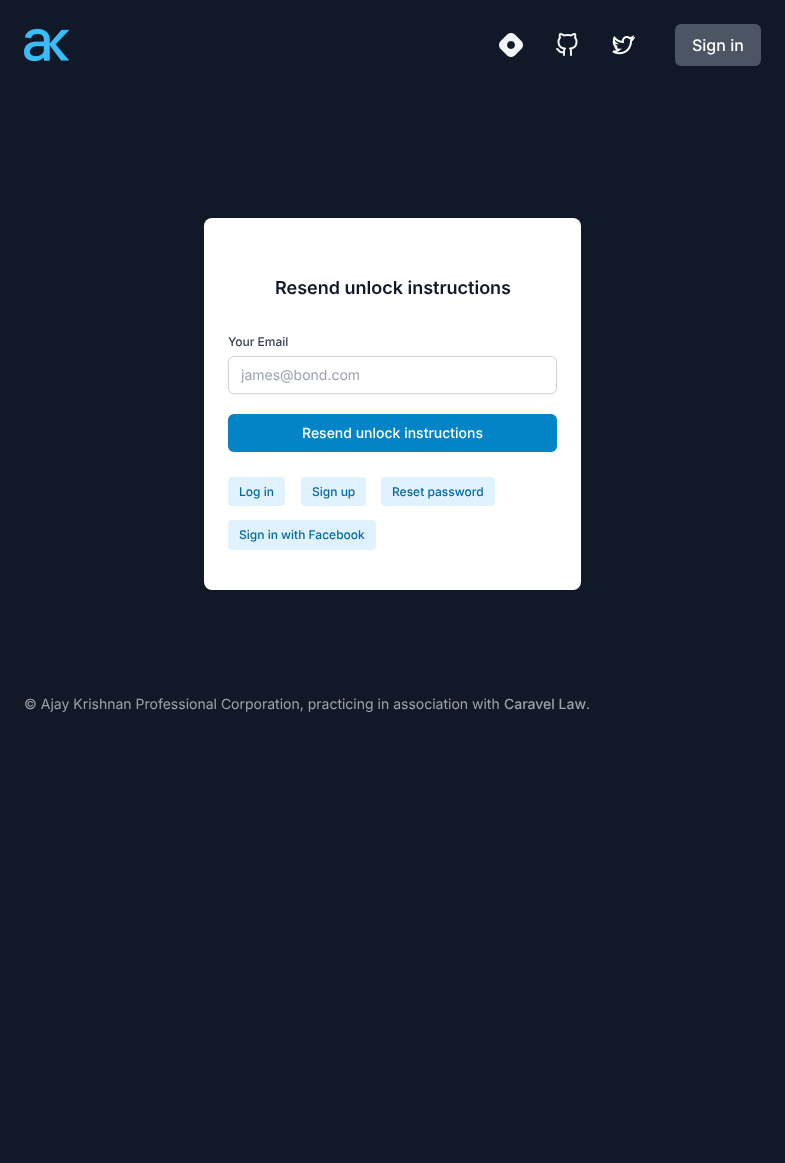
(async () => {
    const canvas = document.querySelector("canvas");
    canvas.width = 785;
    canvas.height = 1163;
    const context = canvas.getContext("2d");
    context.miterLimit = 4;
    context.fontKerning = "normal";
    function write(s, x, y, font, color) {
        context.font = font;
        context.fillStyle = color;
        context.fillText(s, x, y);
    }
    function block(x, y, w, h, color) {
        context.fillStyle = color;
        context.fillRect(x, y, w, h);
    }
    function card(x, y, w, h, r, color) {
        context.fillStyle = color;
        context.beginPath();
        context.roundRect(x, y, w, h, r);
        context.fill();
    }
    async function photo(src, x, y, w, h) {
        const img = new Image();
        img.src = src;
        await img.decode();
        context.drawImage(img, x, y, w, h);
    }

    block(0, 0, 785, 1163, "rgb(17, 24, 39)");
    await photo("media/1.png", 24, 28, 45, 34);
    await photo("media/2.png", 499, 33, 24, 24);
    await photo("media/3.png", 556, 33, 22, 23);
    await photo("media/4.png", 612, 35, 23, 20);
    card(675, 24, 86, 42, 6, "rgb(75, 85, 99)");
    write("Sign in", 692, 51, "500 16px Inter", "rgb(255, 255, 255)");
    card(204, 218, 377, 372, 8, "rgb(255, 255, 255)");
    write("Resend unlock instructions", 275, 294, "600 18px Inter", "rgb(17, 24, 39)");
    write("Your Email", 228, 346, "500 12px Inter", "rgb(55, 65, 81)");
    context.fillStyle = "rgba(0, 0, 0, 0.05)";
    context.filter = "blur(1px)";
    context.beginPath();
    context.roundRect(228, 357, 329, 38, 6);
    context.fill();
    context.filter = "none";
    context.fillStyle = "rgb(255, 255, 255)";
    context.beginPath();
    context.roundRect(228.5, 356.5, 328, 37, 5.5);
    context.fill();
    context.strokeStyle = "rgb(209, 213, 219)";
    context.stroke();
    write("james@bond.com", 241, 380, "14px Inter", "rgb(156, 163, 175)");
    context.fillStyle = "rgba(0, 0, 0, 0.05)";
    context.filter = "blur(1px)";
    context.beginPath();
    context.roundRect(228, 415, 329, 38, 6);
    context.fill();
    context.filter = "none";
    card(228, 414, 329, 38, 6, "rgb(2, 132, 199)");
    write("Resend unlock instructions", 302, 438, "500 14px Inter", "rgb(255, 255, 255)");
    card(228, 477, 57, 29, 4, "rgb(224, 242, 254)");
    write("Log in", 239, 496, "500 12px Inter", "rgb(3, 105, 161)");
    card(301, 477, 65, 29, 4, "rgb(224, 242, 254)");
    write("Sign up", 312, 496, "500 12px Inter", "rgb(3, 105, 161)");
    card(381, 477, 114, 29, 4, "rgb(224, 242, 254)");
    write("Reset password", 392, 496, "500 12px Inter", "rgb(3, 105, 161)");
    card(228, 520, 148, 30, 4, "rgb(224, 242, 254)");
    write("Sign in with Facebook", 239, 539, "500 12px Inter", "rgb(3, 105, 161)");
    write("© Ajay Krishnan Professional Corporation, practicing in association with", 24, 709, "14px Inter", "rgb(156, 163, 175)");
    write("Caravel Law", 504, 709, "500 14px Inter", "rgb(156, 163, 175)");
    write(".", 586, 709, "14px Inter", "rgb(156, 163, 175)");
})();
